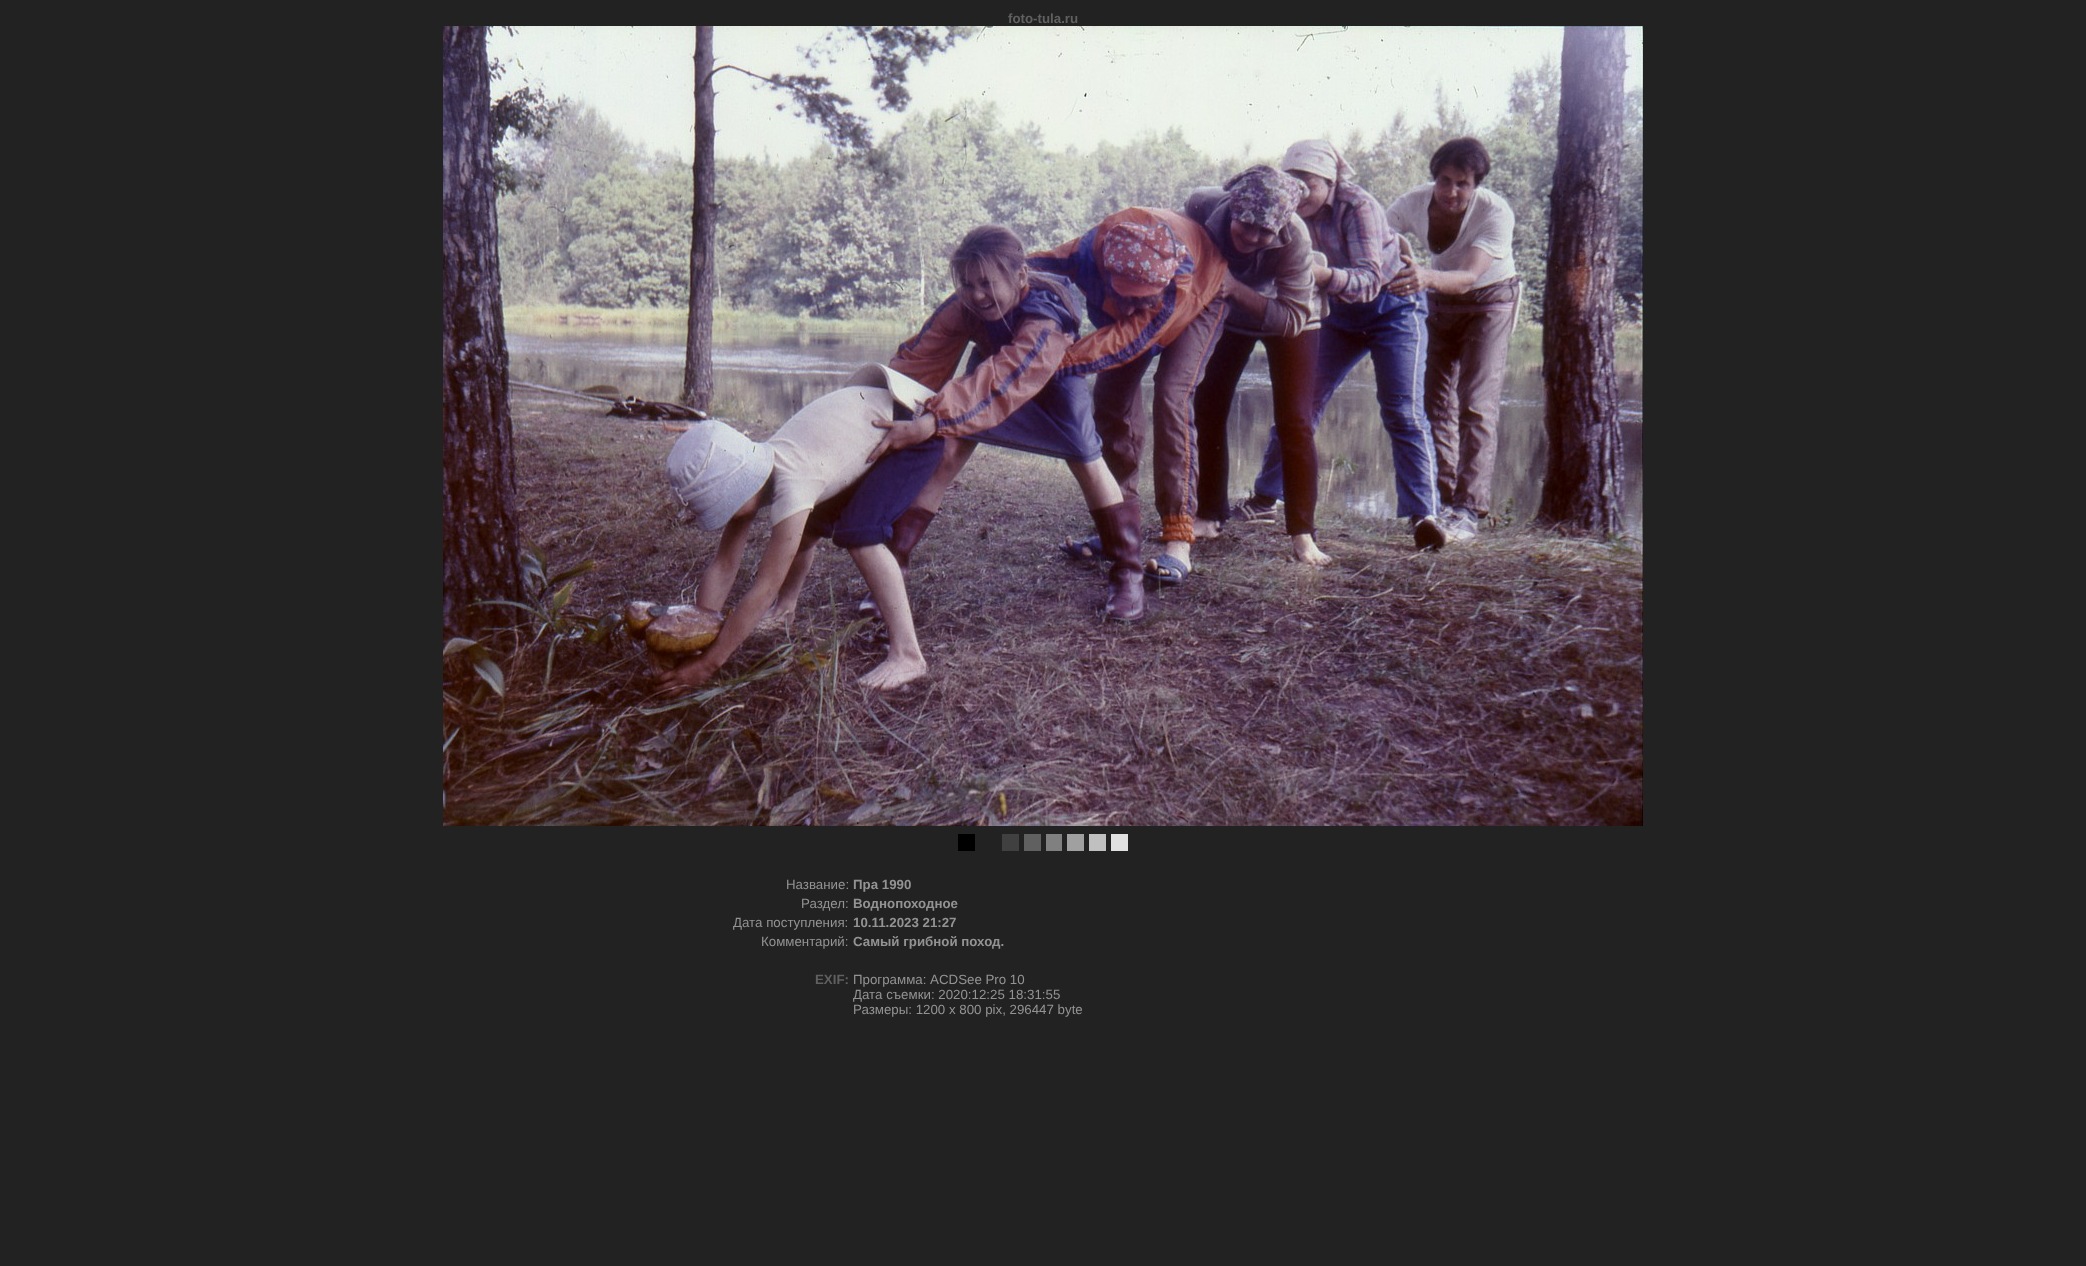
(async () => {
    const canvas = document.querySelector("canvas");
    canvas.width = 2086;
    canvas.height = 1266;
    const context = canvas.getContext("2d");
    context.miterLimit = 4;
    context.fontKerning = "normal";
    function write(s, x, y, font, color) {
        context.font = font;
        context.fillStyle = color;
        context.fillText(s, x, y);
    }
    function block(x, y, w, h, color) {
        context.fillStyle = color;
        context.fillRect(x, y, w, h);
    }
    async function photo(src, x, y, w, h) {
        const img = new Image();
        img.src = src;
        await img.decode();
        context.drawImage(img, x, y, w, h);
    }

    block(0, 0, 2086, 1266, "rgb(34, 34, 34)");
    write("foto-tula.ru", 1008, 23, "bold 13.3px Liberation Sans", "rgb(96, 96, 96)");
    await photo("media/1.png", 443, 26, 1200, 800);
    block(958, 834, 17, 17, "rgb(0, 0, 0)");
    block(1002, 834, 17, 17, "rgb(64, 64, 64)");
    block(1024, 834, 17, 17, "rgb(96, 96, 96)");
    block(1046, 834, 16, 17, "rgb(128, 128, 128)");
    block(1067, 834, 17, 17, "rgb(160, 160, 160)");
    block(1089, 834, 17, 17, "rgb(192, 192, 192)");
    block(1111, 834, 17, 17, "rgb(224, 224, 224)");
    write("Название:", 786, 889, "13.3px Liberation Sans", "rgb(147, 147, 147)");
    write("Пра 1990", 853, 889, "bold 13.3px Liberation Sans", "rgb(147, 147, 147)");
    write("Раздел:", 801, 908, "13.3px Liberation Sans", "rgb(147, 147, 147)");
    write("Воднопоходное", 853, 908, "bold 13.3px Liberation Sans", "rgb(147, 147, 147)");
    write("Дата поступления:", 733, 927, "13.3px Liberation Sans", "rgb(147, 147, 147)");
    write("10.11.2023 21:27", 853, 927, "bold 13.3px Liberation Sans", "rgb(147, 147, 147)");
    write("Комментарий:", 761, 946, "13.3px Liberation Sans", "rgb(147, 147, 147)");
    write("Самый грибной поход.", 853, 946, "bold 13.3px Liberation Sans", "rgb(147, 147, 147)");
    write("EXIF:", 815, 984, "bold 13.3px Liberation Sans", "rgb(96, 96, 96)");
    write("Программа: ACDSee Pro 10", 853, 984, "13.3px Liberation Sans", "rgb(147, 147, 147)");
    write("Дата съемки: 2020:12:25 18:31:55", 853, 999, "13.3px Liberation Sans", "rgb(147, 147, 147)");
    write("Размеры: 1200 x 800 pix, 296447 byte", 853, 1014, "13.3px Liberation Sans", "rgb(147, 147, 147)");
})();
